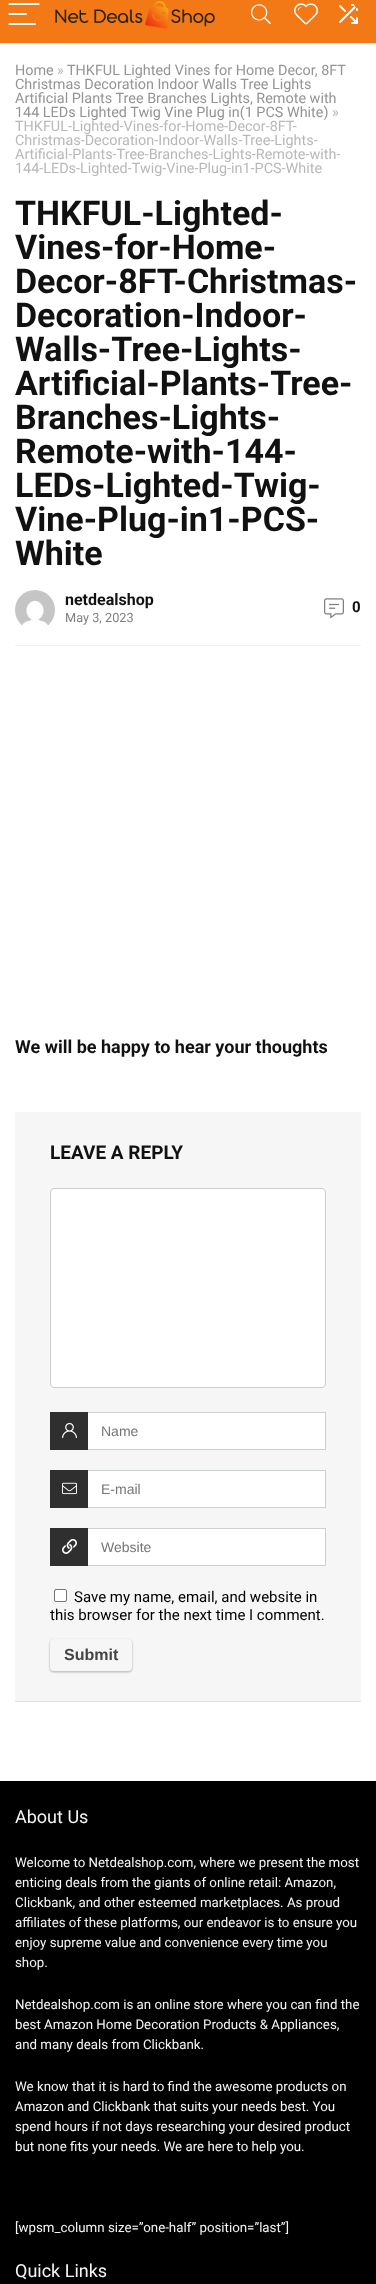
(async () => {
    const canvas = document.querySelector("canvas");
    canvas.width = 376;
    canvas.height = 2284;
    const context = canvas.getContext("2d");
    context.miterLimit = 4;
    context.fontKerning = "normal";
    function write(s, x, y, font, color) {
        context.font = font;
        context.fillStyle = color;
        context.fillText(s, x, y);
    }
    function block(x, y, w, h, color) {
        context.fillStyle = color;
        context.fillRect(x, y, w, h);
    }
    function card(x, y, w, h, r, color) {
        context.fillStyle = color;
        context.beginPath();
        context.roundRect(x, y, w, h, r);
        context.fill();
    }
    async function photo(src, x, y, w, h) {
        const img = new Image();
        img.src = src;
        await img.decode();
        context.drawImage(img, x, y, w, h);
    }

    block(0, 0, 376, 2284, "rgb(255, 255, 255)");
    block(0, 0, 376, 43, "rgb(243, 120, 22)");
    block(0, 43, 376, 1, "rgb(238, 238, 238)");
    context.beginPath();
    context.moveTo(9.5, 4);
    context.lineTo(38.5, 4);
    context.moveTo(9.5, 14);
    context.lineTo(26, 14);
    context.moveTo(9.5, 24);
    context.lineTo(35, 24);
    context.strokeStyle = "rgb(255, 255, 255)";
    context.lineWidth = 2.2;
    context.lineCap = "round";
    context.stroke();
    await photo("media/1.png", 55, 1, 160, 28);
    await photo("media/2.png", 251, 4, 20, 21);
    await photo("media/3.png", 294, 3, 24, 22);
    await photo("media/4.png", 339, 4, 19, 20);
    context.fillStyle = "rgb(243, 120, 22)";
    context.beginPath();
    context.arc(362, 1, 9, 0, Math.PI * 2);
    context.fill();
    write("Home", 15, 75, "14.4px Roboto", "rgb(148, 148, 148)");
    write("»", 57, 75, "14.4px Roboto", "rgb(184, 184, 184)");
    write("THKFUL Lighted Vines for Home Decor, 8FT", 67, 75, "14.4px Roboto", "rgb(148, 148, 148)");
    write("Christmas Decoration Indoor Walls Tree Lights", 15, 89, "14.4px Roboto", "rgb(148, 148, 148)");
    write("Artificial Plants Tree Branches Lights, Remote with", 15, 103, "14.4px Roboto", "rgb(148, 148, 148)");
    write("144 LEDs Lighted Twig Vine Plug in(1 PCS White)", 15, 117, "14.4px Roboto", "rgb(148, 148, 148)");
    write("»", 332, 117, "14.4px Roboto", "rgb(184, 184, 184)");
    write("THKFUL-Lighted-Vines-for-Home-Decor-8FT-", 15, 131, "14.4px Roboto", "rgb(184, 184, 184)");
    write("Christmas-Decoration-Indoor-Walls-Tree-Lights-", 15, 145, "14.4px Roboto", "rgb(184, 184, 184)");
    write("Artificial-Plants-Tree-Branches-Lights-Remote-with-", 15, 159, "14.4px Roboto", "rgb(184, 184, 184)");
    write("144-LEDs-Lighted-Twig-Vine-Plug-in1-PCS-White", 15, 173, "14.4px Roboto", "rgb(184, 184, 184)");
    write("THKFUL-Lighted-", 15, 225, "bold 34px Roboto", "rgb(17, 17, 17)");
    write("Vines-for-Home-", 15, 259, "bold 34px Roboto", "rgb(17, 17, 17)");
    write("Decor-8FT-Christmas-", 15, 293, "bold 34px Roboto", "rgb(17, 17, 17)");
    write("Decoration-Indoor-", 15, 327, "bold 34px Roboto", "rgb(17, 17, 17)");
    write("Walls-Tree-Lights-", 15, 361, "bold 34px Roboto", "rgb(17, 17, 17)");
    write("Artificial-Plants-Tree-", 15, 395, "bold 34px Roboto", "rgb(17, 17, 17)");
    write("Branches-Lights-", 15, 429, "bold 34px Roboto", "rgb(17, 17, 17)");
    write("Remote-with-144-", 15, 463, "bold 34px Roboto", "rgb(17, 17, 17)");
    write("LEDs-Lighted-Twig-", 15, 497, "bold 34px Roboto", "rgb(17, 17, 17)");
    write("Vine-Plug-in1-PCS-", 15, 531, "bold 34px Roboto", "rgb(17, 17, 17)");
    write("White", 15, 565, "bold 34px Roboto", "rgb(17, 17, 17)");
    block(15, 645, 346, 1, "rgb(240, 240, 240)");
    await photo("media/5.png", 15, 590, 40, 36);
    write("netdealshop", 65, 605, "bold 16px Roboto", "rgb(17, 17, 17)");
    write("May 3, 2023", 65, 622, "12.75px Roboto", "rgb(128, 128, 128)");
    await photo("media/6.png", 324, 598, 20, 21);
    write("0", 352, 612, "bold 15px Roboto", "rgb(17, 17, 17)");
    write("We will be happy to hear your thoughts", 15, 1053, "bold 18px Roboto", "rgb(17, 17, 17)");
    context.fillStyle = "rgba(0, 0, 0, 0.12)";
    context.filter = "blur(0.5px)";
    context.beginPath();
    context.rect(15, 1113, 346, 589);
    context.fill();
    context.filter = "none";
    block(15, 1112, 346, 589, "rgb(246, 246, 246)");
    write("LEAVE A REPLY", 50, 1159, "bold 19px Roboto", "rgb(17, 17, 17)");
    context.fillStyle = "rgb(255, 255, 255)";
    context.beginPath();
    context.roundRect(50.5, 1188.5, 275, 199, 3.5);
    context.fill();
    context.strokeStyle = "rgb(204, 204, 204)";
    context.lineWidth = 1;
    context.stroke();
    block(88, 1413, 237, 36, "rgb(255, 255, 255)");
    context.strokeStyle = "rgb(203, 208, 210)";
    context.strokeRect(50.5, 1412.5, 275, 37);
    block(50, 1412, 38, 38, "rgb(47, 47, 47)");
    await photo("media/7.png", 62, 1422, 15, 16);
    write("Name", 101, 1436, "14px Liberation Sans", "rgb(117, 117, 117)");
    block(88, 1471, 237, 36, "rgb(255, 255, 255)");
    context.strokeRect(50.5, 1470.5, 275, 37);
    block(50, 1470, 38, 38, "rgb(47, 47, 47)");
    await photo("media/8.png", 62, 1482, 15, 13);
    write("E-mail", 101, 1494, "14px Liberation Sans", "rgb(117, 117, 117)");
    block(88, 1529, 237, 36, "rgb(255, 255, 255)");
    context.strokeRect(50.5, 1528.5, 275, 37);
    block(50, 1528, 38, 38, "rgb(47, 47, 47)");
    await photo("media/9.png", 62, 1538, 15, 16);
    write("Website", 101, 1552, "14px Liberation Sans", "rgb(117, 117, 117)");
    context.fillStyle = "rgb(255, 255, 255)";
    context.beginPath();
    context.roundRect(54.5, 1589.5, 12, 12, 1.5);
    context.fill();
    context.strokeStyle = "rgb(118, 118, 118)";
    context.stroke();
    write("Save my name, email, and website in", 74, 1602, "15px Roboto", "rgb(0, 0, 0)");
    write("this browser for the next time I comment.", 50, 1620, "15px Roboto", "rgb(0, 0, 0)");
    context.fillStyle = "rgba(0, 0, 0, 0.08)";
    context.filter = "blur(1px)";
    context.beginPath();
    context.roundRect(50, 1640, 82, 32, 4);
    context.fill();
    context.filter = "none";
    context.fillStyle = "rgba(60, 64, 67, 0.3)";
    context.filter = "blur(1px)";
    context.beginPath();
    context.roundRect(50, 1640, 82, 32, 4);
    context.fill();
    context.filter = "none";
    card(50, 1639, 82, 32, 4, "rgb(246, 246, 246)");
    write("Submit", 64, 1660, "bold 16px Liberation Sans", "rgb(68, 68, 68)");
    block(0, 1781, 376, 503, "rgb(0, 0, 0)");
    write("About Us", 15, 1823, "18px Roboto", "rgb(245, 245, 245)");
    write("Welcome to Netdealshop.com, where we present the most", 15, 1867, "13.3px Roboto", "rgb(245, 245, 245)");
    write("enticing deals from the giants of online retail: Amazon,", 15, 1887, "13.3px Roboto", "rgb(245, 245, 245)");
    write("Clickbank, and other esteemed marketplaces. As proud", 15, 1907, "13.3px Roboto", "rgb(245, 245, 245)");
    write("affiliates of these platforms, our endeavor is to ensure you", 15, 1927, "13.3px Roboto", "rgb(245, 245, 245)");
    write("enjoy supreme value and convenience every time you", 15, 1947, "13.3px Roboto", "rgb(245, 245, 245)");
    write("shop.", 15, 1967, "13.3px Roboto", "rgb(245, 245, 245)");
    write("Netdealshop.com is an online store where you can find the", 15, 2009, "13.3px Roboto", "rgb(245, 245, 245)");
    write("best Amazon Home Decoration Products & Appliances,", 15, 2029, "13.3px Roboto", "rgb(245, 245, 245)");
    write("and many deals from Clickbank.", 15, 2049, "13.3px Roboto", "rgb(245, 245, 245)");
    write("We know that it is hard to find the awesome products on", 15, 2091, "13.3px Roboto", "rgb(245, 245, 245)");
    write("Amazon and Clickbank that suits your needs best. You", 15, 2111, "13.3px Roboto", "rgb(245, 245, 245)");
    write("spend hours if not days researching your desired product", 15, 2131, "13.3px Roboto", "rgb(245, 245, 245)");
    write("but none fits your needs. We are here to help you.", 15, 2151, "13.3px Roboto", "rgb(245, 245, 245)");
    write("[wpsm_column size=”one-half” position=”last”]", 15, 2232, "13.3px Roboto", "rgb(245, 245, 245)");
    write("Quick Links", 15, 2277, "18px Roboto", "rgb(245, 245, 245)");
})();
